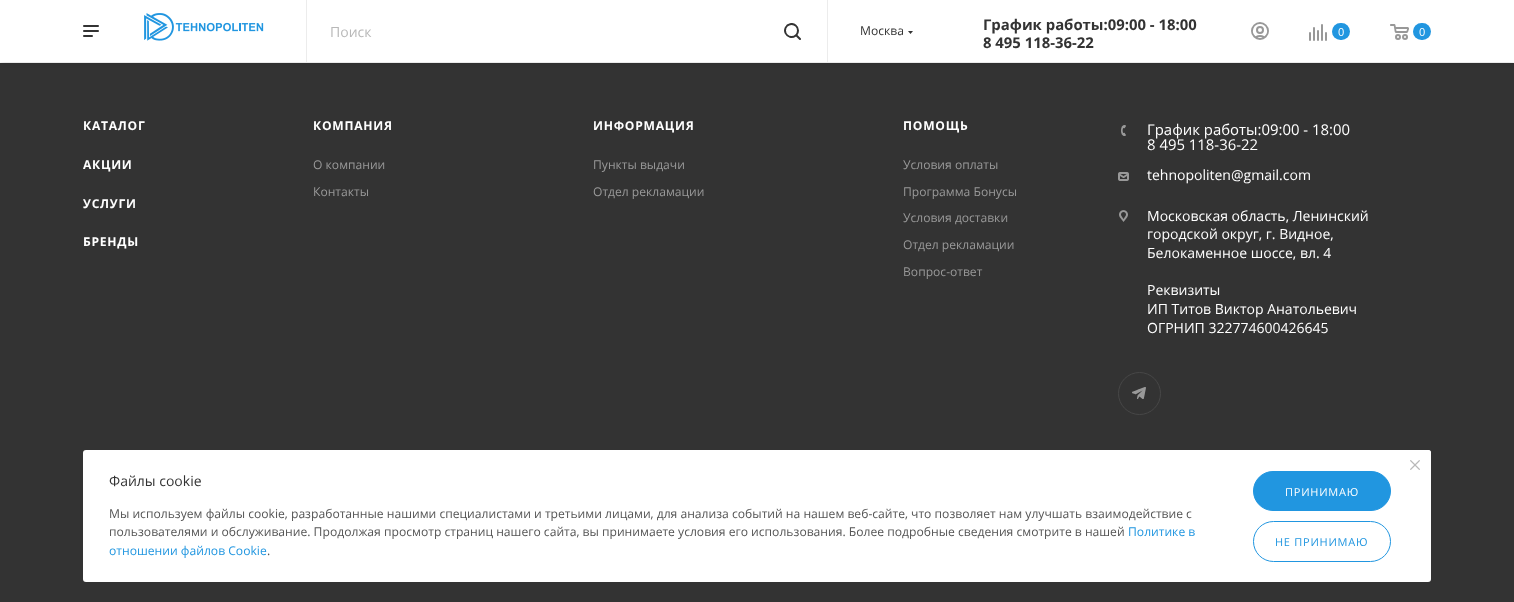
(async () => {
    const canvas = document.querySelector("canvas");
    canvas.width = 1514;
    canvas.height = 602;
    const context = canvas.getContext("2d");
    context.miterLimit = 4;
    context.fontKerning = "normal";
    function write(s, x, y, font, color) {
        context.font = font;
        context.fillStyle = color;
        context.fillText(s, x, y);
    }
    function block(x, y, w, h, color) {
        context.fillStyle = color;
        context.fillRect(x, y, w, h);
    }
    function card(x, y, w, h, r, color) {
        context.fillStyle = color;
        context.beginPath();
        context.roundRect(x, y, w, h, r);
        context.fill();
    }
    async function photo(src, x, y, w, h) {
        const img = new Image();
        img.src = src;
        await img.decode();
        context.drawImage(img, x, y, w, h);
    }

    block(0, 0, 1514, 602, "rgb(255, 255, 255)");
    block(0, 63, 1514, 539, "rgb(51, 51, 51)");
    context.fillStyle = "rgba(0, 0, 0, 0.14)";
    context.filter = "blur(2.5px)";
    context.beginPath();
    context.rect(0, 1, 1514, 62);
    context.fill();
    context.filter = "none";
    block(0, 0, 1514, 62, "rgb(255, 255, 255)");
    await photo("media/1.png", 83, 25, 16, 12);
    await photo("media/2.png", 144, 13, 120, 28);
    block(827, 0, 1, 62, "rgb(236, 236, 236)");
    block(306, 0, 1, 62, "rgb(236, 236, 236)");
    write("Поиск", 330, 37, "14px Open Sans", "rgb(184, 184, 184)");
    await photo("media/3.png", 784, 23, 17, 17);
    write("Москва", 860, 35, "12.1px Open Sans", "rgb(51, 51, 51)");
    context.beginPath();
    context.moveTo(908, 31);
    context.lineTo(913, 31);
    context.lineTo(910.5, 34);
    context.closePath();
    context.fill("evenodd");
    write("График работы:09:00 - 18:00", 983, 30, "bold 14.9px Open Sans", "rgb(51, 51, 51)");
    write("8 495 118-36-22", 983, 48, "bold 14.9px Open Sans", "rgb(51, 51, 51)");
    await photo("media/4.png", 1251, 22, 18, 18);
    await photo("media/5.png", 1309, 24, 18, 17);
    card(1332, 23, 18, 17, 8.5, "rgb(33, 150, 224)");
    write("0", 1338, 36, "11px Open Sans", "rgb(255, 255, 255)");
    await photo("media/6.png", 1390, 24, 19, 16);
    card(1413, 23, 18, 17, 8.5, "rgb(33, 150, 224)");
    write("0", 1419, 36, "11px Open Sans", "rgb(255, 255, 255)");
    context.letterSpacing = "0.75px";
    write("КАТАЛОГ", 83, 130, "bold 12.1px Open Sans", "rgb(255, 255, 255)");
    write("АКЦИИ", 83, 169, "bold 12.1px Open Sans", "rgb(255, 255, 255)");
    write("УСЛУГИ", 83, 208, "bold 12.1px Open Sans", "rgb(255, 255, 255)");
    write("БРЕНДЫ", 83, 246, "bold 12.1px Open Sans", "rgb(255, 255, 255)");
    write("КОМПАНИЯ", 313, 130, "bold 12.1px Open Sans", "rgb(255, 255, 255)");
    context.letterSpacing = "0px";
    write("О компании", 313, 169, "12.1px Open Sans", "rgb(153, 153, 153)");
    write("Контакты", 313, 196, "12.1px Open Sans", "rgb(153, 153, 153)");
    context.letterSpacing = "0.75px";
    write("ИНФОРМАЦИЯ", 593, 130, "bold 12.1px Open Sans", "rgb(255, 255, 255)");
    context.letterSpacing = "0px";
    write("Пункты выдачи", 593, 169, "12.1px Open Sans", "rgb(153, 153, 153)");
    write("Отдел рекламации", 593, 196, "12.1px Open Sans", "rgb(153, 153, 153)");
    context.letterSpacing = "0.75px";
    write("ПОМОЩЬ", 903, 130, "bold 12.1px Open Sans", "rgb(255, 255, 255)");
    context.letterSpacing = "0px";
    write("Условия оплаты", 903, 169, "12.1px Open Sans", "rgb(153, 153, 153)");
    write("Программа Бонусы", 903, 196, "12.1px Open Sans", "rgb(153, 153, 153)");
    write("Условия доставки", 903, 222, "12.1px Open Sans", "rgb(153, 153, 153)");
    write("Отдел рекламации", 903, 249, "12.1px Open Sans", "rgb(153, 153, 153)");
    write("Вопрос-ответ", 903, 276, "12.1px Open Sans", "rgb(153, 153, 153)");
    await photo("media/7.png", 1121, 125, 5, 11);
    write("График работы:09:00 - 18:00", 1147, 135, "14.9px Open Sans", "rgb(255, 255, 255)");
    write("8 495 118-36-22", 1147, 150, "14.9px Open Sans", "rgb(255, 255, 255)");
    await photo("media/8.png", 1118, 172, 11, 9);
    write("tehnopoliten@gmail.com", 1147, 180, "14px Open Sans", "rgb(255, 255, 255)");
    await photo("media/9.png", 1119, 210, 9, 12);
    write("Московская область, Ленинский", 1147, 221, "14px Open Sans", "rgb(255, 255, 255)");
    write("городской округ, г. Видное,", 1147, 239, "14px Open Sans", "rgb(255, 255, 255)");
    write("Белокаменное шоссе, вл. 4", 1147, 258, "14px Open Sans", "rgb(255, 255, 255)");
    write("Реквизиты", 1147, 295, "14px Open Sans", "rgb(255, 255, 255)");
    write("ИП Титов Виктор Анатольевич", 1147, 314, "14px Open Sans", "rgb(255, 255, 255)");
    write("ОГРНИП 322774600426645", 1147, 333, "14px Open Sans", "rgb(255, 255, 255)");
    await photo("media/10.png", 1132, 387, 14, 12);
    context.beginPath();
    context.arc(1139.5, 393.5, 21, 0, Math.PI * 2);
    context.strokeStyle = "rgb(71, 71, 71)";
    context.stroke();
    card(83, 450, 1348, 132, 3, "rgb(255, 255, 255)");
    context.beginPath();
    context.roundRect(1399, 450, 32, 32, [0, 3, 0, 3]);
    context.fill();
    await photo("media/11.png", 1410, 460, 10, 10);
    write("Файлы cookie", 109, 486, "14px Open Sans", "rgb(51, 51, 51)");
    write("Мы используем файлы cookie, разработанные нашими специалистами и третьими лицами, для анализа событий на нашем веб-сайте, что позволяет нам улучшать взаимодействие с", 109, 518, "12.13px Open Sans", "rgb(85, 85, 85)");
    write("пользователями и обслуживание. Продолжая просмотр страниц нашего сайта, вы принимаете условия его использования. Более подробные сведения смотрите в нашей", 109, 536, "12.13px Open Sans", "rgb(85, 85, 85)");
    write("Политике в", 1128, 536, "12.13px Open Sans", "rgb(33, 150, 224)");
    write("отношении файлов Cookie", 109, 555, "12.13px Open Sans", "rgb(33, 150, 224)");
    write(".", 267, 555, "12.13px Open Sans", "rgb(85, 85, 85)");
    context.fillStyle = "rgb(33, 150, 224)";
    context.beginPath();
    context.roundRect(1253.5, 471.5, 137, 39, 19.5);
    context.fill();
    context.strokeStyle = "rgb(33, 150, 224)";
    context.stroke();
    context.letterSpacing = "0.75px";
    write("ПРИНИМАЮ", 1285, 496, "11px Open Sans", "rgb(255, 255, 255)");
    context.beginPath();
    context.roundRect(1253.5, 521.5, 137, 40, 20);
    context.stroke();
    write("НЕ ПРИНИМАЮ", 1275, 546, "11px Open Sans", "rgb(33, 150, 224)");
})();
